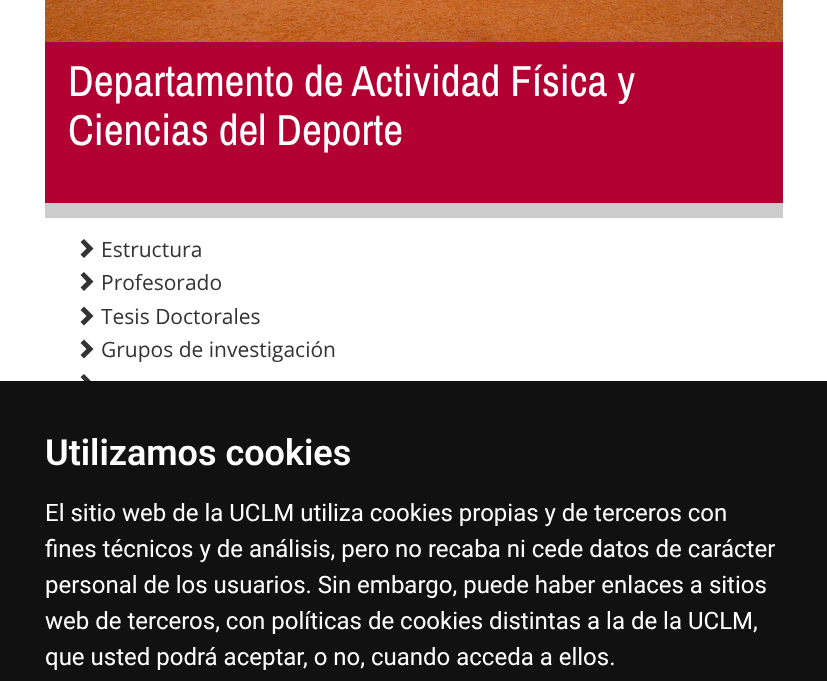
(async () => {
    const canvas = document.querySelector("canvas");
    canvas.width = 827;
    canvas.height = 681;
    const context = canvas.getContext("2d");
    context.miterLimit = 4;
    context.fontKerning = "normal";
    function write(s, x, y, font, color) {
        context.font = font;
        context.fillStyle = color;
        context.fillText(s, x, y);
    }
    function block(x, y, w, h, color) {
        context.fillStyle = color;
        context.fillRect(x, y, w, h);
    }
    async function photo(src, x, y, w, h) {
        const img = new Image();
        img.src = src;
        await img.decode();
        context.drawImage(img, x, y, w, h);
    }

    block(0, 0, 827, 681, "rgb(255, 255, 255)");
    await photo("media/1.png", 45, 0, 738, 42);
    block(45, 42, 738, 161, "rgb(179, 0, 51)");
    write("Departamento de Actividad Física y", 68, 96, "43.5px Archivo Narrow", "rgb(255, 255, 255)");
    write("Ciencias del Deporte", 68, 145, "43.5px Archivo Narrow", "rgb(255, 255, 255)");
    block(45, 203, 738, 15, "rgb(204, 204, 204)");
    context.fillStyle = "rgb(51, 51, 51)";
    context.beginPath();
    context.moveTo(93.5, 248.5);
    context.lineTo(84, 258);
    context.lineTo(80.5, 254.5);
    context.lineTo(86.5, 248.5);
    context.lineTo(80.5, 242);
    context.lineTo(84, 239);
    context.closePath();
    context.moveTo(93.5, 281.5);
    context.lineTo(84, 291);
    context.lineTo(80.5, 287.5);
    context.lineTo(86.5, 281.5);
    context.lineTo(80.5, 275);
    context.lineTo(84, 272);
    context.closePath();
    context.fill();
    write("Estructura", 101, 257, "21px Open Sans", "rgb(51, 51, 51)");
    write("Profesorado", 101, 290, "21px Open Sans", "rgb(51, 51, 51)");
    context.beginPath();
    context.moveTo(93.5, 316);
    context.lineTo(84, 325.5);
    context.lineTo(80.5, 322);
    context.lineTo(86.5, 316);
    context.lineTo(80.5, 310);
    context.lineTo(84, 306.5);
    context.closePath();
    context.moveTo(93.5, 349);
    context.lineTo(84, 358.5);
    context.lineTo(80.5, 355);
    context.lineTo(86.5, 349);
    context.lineTo(80.5, 343);
    context.lineTo(84, 339.5);
    context.closePath();
    context.fill();
    write("Tesis Doctorales", 101, 324, "21px Open Sans", "rgb(51, 51, 51)");
    write("Grupos de investigación", 101, 357, "21px Open Sans", "rgb(51, 51, 51)");
    context.beginPath();
    context.moveTo(93.5, 383.5);
    context.lineTo(84, 393);
    context.lineTo(80.5, 389.5);
    context.lineTo(86.5, 383.5);
    context.lineTo(80.5, 377);
    context.lineTo(84, 374);
    context.closePath();
    context.fill();
    block(0, 381, 827, 300, "rgb(17, 17, 17)");
    write("Utilizamos cookies", 45, 465, "600 36px Roboto", "rgb(255, 255, 255)");
    write("El sitio web de la UCLM utiliza cookies propias y de terceros con", 45, 521, "24px Roboto", "rgb(255, 255, 255)");
    write("fines técnicos y de análisis, pero no recaba ni cede datos de carácter", 45, 557, "24px Roboto", "rgb(255, 255, 255)");
    write("personal de los usuarios. Sin embargo, puede haber enlaces a sitios", 45, 593, "24px Roboto", "rgb(255, 255, 255)");
    write("web de terceros, con políticas de cookies distintas a la de la UCLM,", 45, 629, "24px Roboto", "rgb(255, 255, 255)");
    write("que usted podrá aceptar, o no, cuando acceda a ellos.", 45, 665, "24px Roboto", "rgb(255, 255, 255)");
})();
